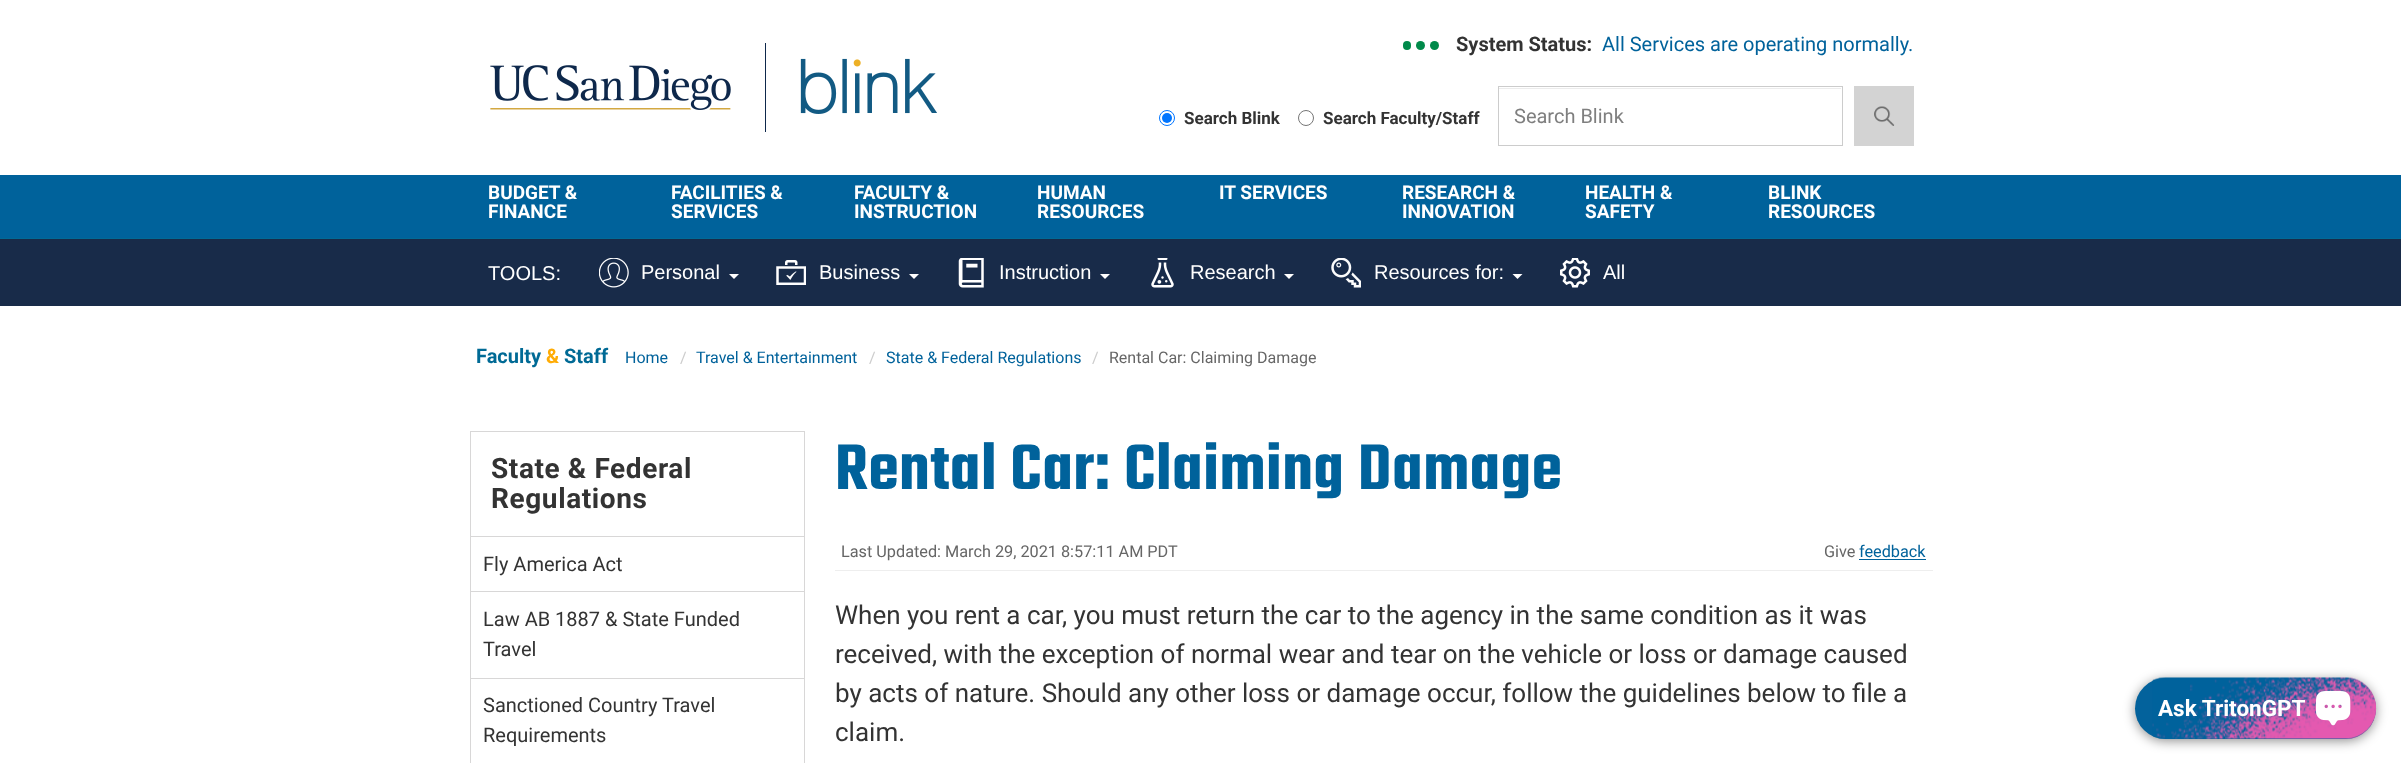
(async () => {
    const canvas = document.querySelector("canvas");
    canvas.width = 2401;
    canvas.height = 763;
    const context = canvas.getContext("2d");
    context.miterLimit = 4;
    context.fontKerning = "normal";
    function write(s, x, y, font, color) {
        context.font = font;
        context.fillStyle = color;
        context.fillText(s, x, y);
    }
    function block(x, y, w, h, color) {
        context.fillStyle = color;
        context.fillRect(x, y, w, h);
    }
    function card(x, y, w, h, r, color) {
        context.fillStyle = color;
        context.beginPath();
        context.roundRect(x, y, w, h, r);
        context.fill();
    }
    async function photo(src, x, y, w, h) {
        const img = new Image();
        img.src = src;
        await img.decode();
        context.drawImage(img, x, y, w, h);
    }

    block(0, 0, 2401, 763, "rgb(255, 255, 255)");
    await photo("media/1.png", 490, 43, 447, 89);
    card(1403, 41, 8, 9, 4, "rgb(0, 138, 74)");
    context.beginPath();
    context.arc(1420.5, 45.5, 4.5, 0, Math.PI * 2);
    context.fill();
    context.beginPath();
    context.arc(1434.5, 45.5, 4.5, 0, Math.PI * 2);
    context.fill();
    write("System Status:", 1456, 51, "bold 20px Roboto", "rgb(51, 51, 51)");
    write("All Services are operating normally.", 1602, 51, "20px Roboto", "rgb(0, 98, 155)");
    context.beginPath();
    context.arc(1167, 118, 7.5, 0, Math.PI * 2);
    context.strokeStyle = "rgb(0, 117, 255)";
    context.stroke();
    context.fillStyle = "rgb(0, 117, 255)";
    context.beginPath();
    context.arc(1167, 118, 5, 0, Math.PI * 2);
    context.fill();
    write("Search Blink", 1184, 124, "bold 17px Roboto", "rgb(51, 51, 51)");
    context.beginPath();
    context.arc(1306, 118, 7.5, 0, Math.PI * 2);
    context.strokeStyle = "rgb(118, 118, 118)";
    context.stroke();
    write("Search Faculty/Staff", 1323, 124, "bold 17px Roboto", "rgb(51, 51, 51)");
    block(1499, 88, 342, 1, "rgb(236, 236, 236)");
    context.strokeStyle = "rgb(204, 204, 204)";
    context.strokeRect(1498.5, 86.5, 344, 59);
    write("Search Blink", 1514, 123, "20px Roboto", "rgb(127, 127, 127)");
    block(1854, 86, 60, 60, "rgb(211, 211, 211)");
    await photo("media/2.png", 1874, 106, 21, 20);
    block(0, 238, 2401, 1, "rgb(1, 106, 150)");
    block(0, 175, 2401, 63, "rgb(0, 98, 155)");
    write("BUDGET &", 488, 199, "bold 19px Roboto", "rgb(255, 255, 255)");
    write("FINANCE", 488, 218, "bold 19px Roboto", "rgb(255, 255, 255)");
    write("FACILITIES &", 671, 199, "bold 19px Roboto", "rgb(255, 255, 255)");
    write("SERVICES", 671, 218, "bold 19px Roboto", "rgb(255, 255, 255)");
    write("FACULTY &", 854, 199, "bold 19px Roboto", "rgb(255, 255, 255)");
    write("INSTRUCTION", 854, 218, "bold 19px Roboto", "rgb(255, 255, 255)");
    write("HUMAN", 1037, 199, "bold 19px Roboto", "rgb(255, 255, 255)");
    write("RESOURCES", 1037, 218, "bold 19px Roboto", "rgb(255, 255, 255)");
    write("IT SERVICES", 1219, 199, "bold 19px Roboto", "rgb(255, 255, 255)");
    write("RESEARCH &", 1402, 199, "bold 19px Roboto", "rgb(255, 255, 255)");
    write("INNOVATION", 1402, 218, "bold 19px Roboto", "rgb(255, 255, 255)");
    write("HEALTH &", 1585, 199, "bold 19px Roboto", "rgb(255, 255, 255)");
    write("SAFETY", 1585, 218, "bold 19px Roboto", "rgb(255, 255, 255)");
    write("BLINK", 1768, 199, "bold 19px Roboto", "rgb(255, 255, 255)");
    write("RESOURCES", 1768, 218, "bold 19px Roboto", "rgb(255, 255, 255)");
    block(0, 239, 2401, 67, "rgb(24, 43, 73)");
    write("TOOLS:", 488, 280, "20px Liberation Sans", "rgb(255, 255, 255)");
    await photo("media/3.png", 599, 258, 30, 30);
    write("Personal", 641, 279, "20px Liberation Sans", "rgb(255, 255, 255)");
    context.beginPath();
    context.moveTo(729, 274);
    context.lineTo(739, 274);
    context.lineTo(734, 279);
    context.closePath();
    context.fill();
    await photo("media/4.png", 776, 260, 30, 25);
    write("Business", 819, 279, "20px Liberation Sans", "rgb(255, 255, 255)");
    context.beginPath();
    context.moveTo(909, 274);
    context.lineTo(919, 274);
    context.lineTo(914, 279);
    context.closePath();
    context.fill();
    await photo("media/5.png", 958, 258, 26, 30);
    write("Instruction", 999, 279, "20px Liberation Sans", "rgb(255, 255, 255)");
    context.beginPath();
    context.moveTo(1100, 274);
    context.lineTo(1110, 274);
    context.lineTo(1105, 279);
    context.closePath();
    context.fill();
    await photo("media/6.png", 1151, 258, 23, 30);
    write("Research", 1190, 279, "20px Liberation Sans", "rgb(255, 255, 255)");
    context.beginPath();
    context.moveTo(1284, 274);
    context.lineTo(1294, 274);
    context.lineTo(1289, 279);
    context.closePath();
    context.fill();
    await photo("media/7.png", 1331, 258, 30, 30);
    write("Resources for:", 1374, 279, "20px Liberation Sans", "rgb(255, 255, 255)");
    context.beginPath();
    context.moveTo(1512.5, 274);
    context.lineTo(1522.5, 274);
    context.lineTo(1517.5, 279);
    context.closePath();
    context.fill();
    await photo("media/8.png", 1560, 258, 30, 30);
    write("All", 1603, 279, "20px Liberation Sans", "rgb(255, 255, 255)");
    write("Faculty", 476, 363, "bold 20px Roboto", "rgb(0, 106, 149)");
    write("&", 546, 363, "bold 20px Roboto", "rgb(255, 172, 5)");
    write("Staff", 564, 363, "bold 20px Roboto", "rgb(0, 106, 149)");
    write("Home", 625, 363, "16px Roboto", "rgb(0, 98, 155)");
    write("/", 680, 363, "16px Roboto", "rgb(204, 204, 204)");
    write("Travel & Entertainment", 696, 363, "16px Roboto", "rgb(0, 98, 155)");
    write("/", 869, 363, "16px Roboto", "rgb(204, 204, 204)");
    write("State & Federal Regulations", 886, 363, "16px Roboto", "rgb(0, 98, 155)");
    write("/", 1092, 363, "16px Roboto", "rgb(204, 204, 204)");
    write("Rental Car: Claiming Damage", 1109, 363, "16px Roboto", "rgb(102, 102, 102)");
    context.strokeStyle = "rgb(216, 215, 215)";
    context.strokeRect(470.5, 431.5, 334, 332);
    context.letterSpacing = "0.6px";
    write("State & Federal", 491, 478, "bold 28px Roboto", "rgb(51, 51, 51)");
    write("Regulations", 491, 508, "bold 28px Roboto", "rgb(51, 51, 51)");
    block(471, 536, 333, 1, "rgb(216, 215, 215)");
    context.letterSpacing = "0px";
    write("Fly America Act", 483, 571, "20px Roboto", "rgb(51, 51, 51)");
    block(471, 591, 333, 1, "rgb(216, 215, 215)");
    write("Law AB 1887 & State Funded", 483, 626, "20px Roboto", "rgb(51, 51, 51)");
    write("Travel", 483, 656, "20px Roboto", "rgb(51, 51, 51)");
    block(471, 678, 333, 1, "rgb(216, 215, 215)");
    write("Sanctioned Country Travel", 483, 712, "20px Roboto", "rgb(51, 51, 51)");
    write("Requirements", 483, 742, "20px Roboto", "rgb(51, 51, 51)");
    context.letterSpacing = "0.6px";
    write("Rental Car: Claiming Damage", 835, 489, "600 70px Teko", "rgb(0, 98, 155)");
    block(835, 570, 1098, 1, "rgb(238, 238, 238)");
    context.letterSpacing = "0px";
    write("Last Updated: March 29, 2021 8:57:11 AM PDT", 841, 557, "16.25px Roboto", "rgb(102, 102, 102)");
    write("Give", 1824, 557, "16.25px Roboto", "rgb(102, 102, 102)");
    write("feedback", 1859, 557, "16.25px Roboto", "rgb(0, 98, 155)");
    block(1859, 559, 67, 1, "rgb(0, 98, 155)");
    write("When you rent a car, you must return the car to the agency in the same condition as it was", 835, 624, "26px Roboto", "rgb(51, 51, 51)");
    write("received, with the exception of normal wear and tear on the vehicle or loss or damage caused", 835, 663, "26px Roboto", "rgb(51, 51, 51)");
    write("by acts of nature. Should any other loss or damage occur, follow the guidelines below to file a", 835, 702, "26px Roboto", "rgb(51, 51, 51)");
    write("claim.", 835, 741, "26px Roboto", "rgb(51, 51, 51)");
    context.fillStyle = "rgba(0, 0, 0, 0.44)";
    context.filter = "blur(6px)";
    context.beginPath();
    context.roundRect(2135, 680, 241, 61, 30.5);
    context.fill();
    context.filter = "none";
    card(2135, 678, 241, 61, 30.5, "rgb(3, 98, 156)");
    await photo("media/9.png", 2152, 677, 225, 63);
    write("Ask TritonGPT", 2158, 716, "bold 22.5px Roboto", "rgb(255, 255, 255)");
    await photo("media/10.png", 2315, 690, 36, 36);
})();
